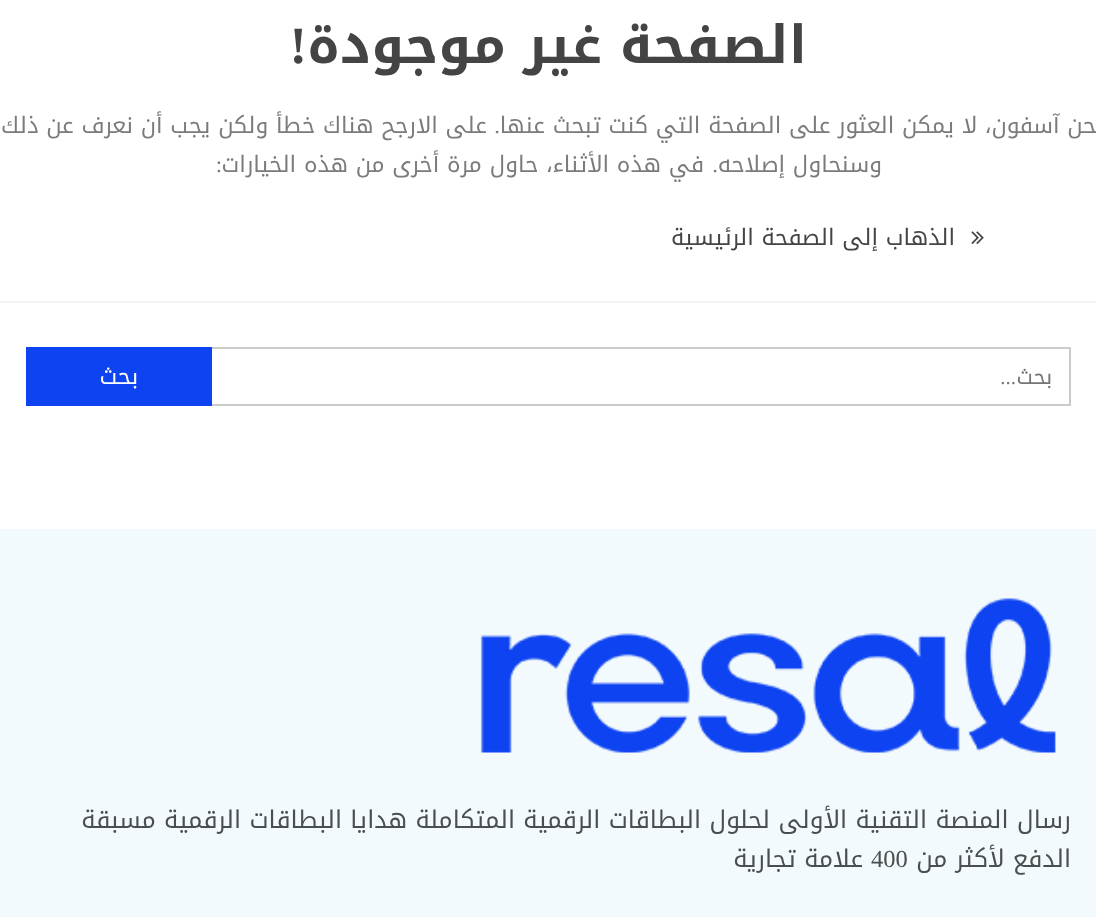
(async () => {
    const canvas = document.querySelector("canvas");
    canvas.width = 1096;
    canvas.height = 917;
    const context = canvas.getContext("2d");
    context.miterLimit = 4;
    context.fontKerning = "normal";
    function write(s, x, y, font, color) {
        context.font = font;
        context.fillStyle = color;
        context.fillText(s, x, y);
    }
    function block(x, y, w, h, color) {
        context.fillStyle = color;
        context.fillRect(x, y, w, h);
    }
    async function photo(src, x, y, w, h) {
        const img = new Image();
        img.src = src;
        await img.decode();
        context.drawImage(img, x, y, w, h);
    }

    block(0, 0, 1096, 917, "rgb(243, 250, 253)");
    block(0, 0, 1096, 529, "rgb(255, 255, 255)");
    context.direction = "rtl";
    write("الصفحة غير موجودة", 807, 63, "bold 52.5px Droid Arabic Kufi", "rgb(68, 68, 68)");
    write("!", 307, 63, "bold 52.5px Liberation Serif", "rgb(68, 68, 68)");
    write("نحن آسفون، لا يمكن العثور على الصفحة التي كنت تبحث عنها", 1103, 133, "22.75px Droid Arabic Kufi", "rgb(123, 123, 123)");
    write(".", 500, 133, "22.75px Liberation Serif", "rgb(123, 123, 123)");
    write("على الارجح هناك خطأ ولكن يجب أن نعرف عن ذلك،", 487, 133, "22.75px Droid Arabic Kufi", "rgb(123, 123, 123)");
    write("وسنحاول إصلاحه", 882, 172, "22.75px Droid Arabic Kufi", "rgb(123, 123, 123)");
    write(".", 718, 172, "22.75px Liberation Serif", "rgb(123, 123, 123)");
    write("في هذه الأثناء، حاول مرة أخرى من هذه الخيارات", 704, 172, "22.75px Droid Arabic Kufi", "rgb(123, 123, 123)");
    write(":", 222, 172, "22.75px Liberation Serif", "rgb(123, 123, 123)");
    await photo("media/1.png", 971, 231, 13, 13);
    write("الذهاب إلى الصفحة الرئيسية", 955, 245, "22.75px Droid Arabic Kufi", "rgb(68, 68, 68)");
    block(0, 301, 1096, 2, "rgb(244, 244, 244)");
    context.strokeStyle = "rgb(203, 203, 203)";
    context.lineWidth = 2;
    context.strokeRect(27, 348, 1043, 57);
    write("بحث", 1052, 384, "21px Droid Arabic Kufi", "rgb(117, 117, 117)");
    write("...", 1016, 384, "21px Liberation Serif", "rgb(117, 117, 117)");
    block(26, 347, 186, 59, "rgb(14, 67, 241)");
    write("بحث", 138, 384, "22.75px Droid Arabic Kufi", "rgb(255, 255, 255)");
    await photo("media/2.png", 480, 598, 576, 155);
    write("رسال المنصة التقنية الأولى لحلول البطاقات الرقمية المتكاملة هدايا البطاقات الرقمية مسبقة", 1071, 828, "24.5px Droid Arabic Kufi", "rgb(75, 78, 78)");
    write("الدفع لأكثر من", 1071, 867, "24.5px Droid Arabic Kufi", "rgb(75, 78, 78)");
    context.direction = "ltr";
    write("400", 871, 867, "24.5px Liberation Serif", "rgb(75, 78, 78)");
    context.direction = "rtl";
    write("علامة تجارية", 863, 867, "24.5px Droid Arabic Kufi", "rgb(75, 78, 78)");
})();
